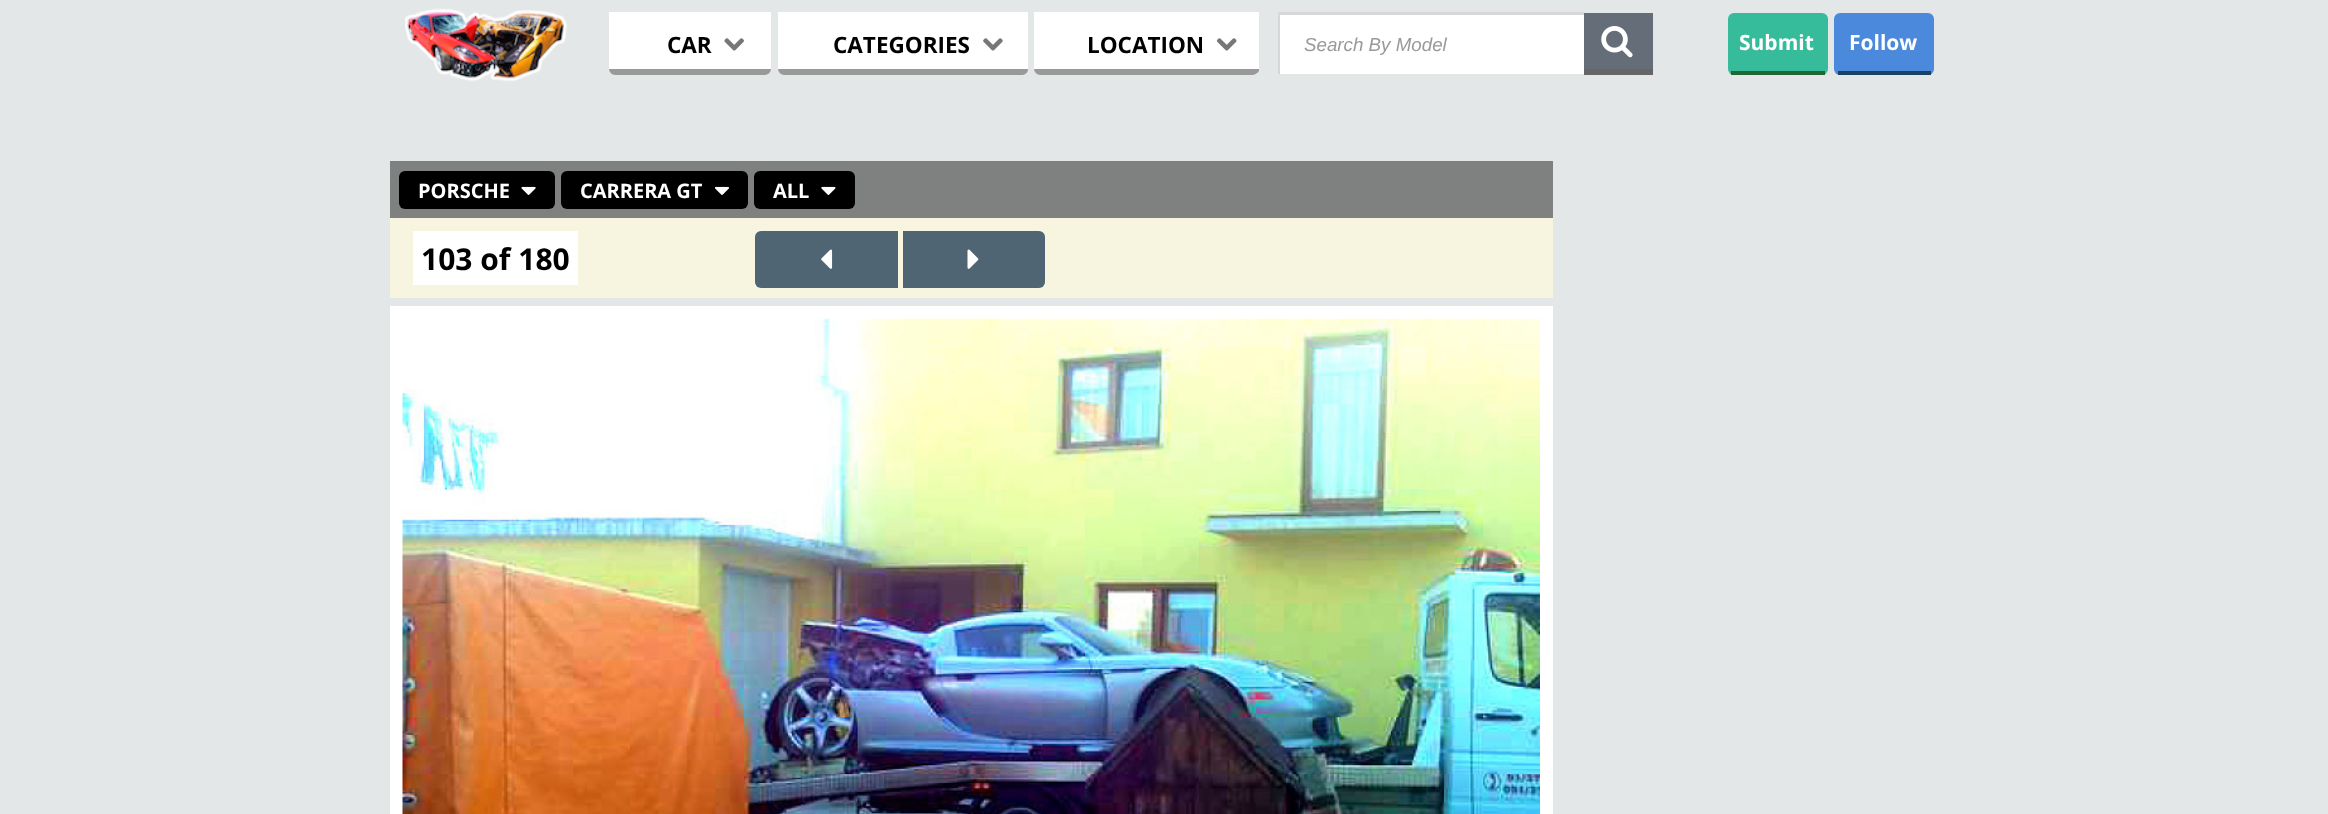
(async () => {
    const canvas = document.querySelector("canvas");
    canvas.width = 2328;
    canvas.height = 814;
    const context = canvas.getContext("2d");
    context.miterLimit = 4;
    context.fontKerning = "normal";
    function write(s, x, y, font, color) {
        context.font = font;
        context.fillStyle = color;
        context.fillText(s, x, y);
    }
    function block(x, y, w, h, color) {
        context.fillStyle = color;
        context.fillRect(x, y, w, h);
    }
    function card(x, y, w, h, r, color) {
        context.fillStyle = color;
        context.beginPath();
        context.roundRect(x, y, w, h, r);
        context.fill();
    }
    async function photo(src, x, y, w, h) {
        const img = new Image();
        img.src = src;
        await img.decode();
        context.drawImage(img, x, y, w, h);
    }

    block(0, 0, 2328, 814, "rgb(228, 231, 231)");
    await photo("media/1.png", 405, 8, 163, 74);
    context.fillStyle = "rgb(255, 255, 255)";
    context.beginPath();
    context.roundRect(609, 13, 162, 62, [0, 0, 6, 6]);
    context.fill();
    block(609, 12, 162, 1, "rgb(255, 255, 255)");
    context.fillStyle = "rgb(153, 153, 153)";
    context.beginPath();
    context.moveTo(765, 75);
    context.bezierCurveTo(768, 75, 771, 72, 771, 69);
    context.lineTo(609, 69);
    context.bezierCurveTo(609, 72, 612, 75, 615, 75);
    context.closePath();
    context.fill();
    write("CAR", 667, 53, "bold 22.5px Open Sans", "rgb(0, 0, 0)");
    await photo("media/2.png", 724, 38, 20, 13);
    context.fillStyle = "rgb(255, 255, 255)";
    context.beginPath();
    context.roundRect(778, 13, 250, 62, [0, 0, 6, 6]);
    context.fill();
    block(778, 12, 250, 1, "rgb(255, 255, 255)");
    context.fillStyle = "rgb(153, 153, 153)";
    context.beginPath();
    context.moveTo(1028, 69);
    context.bezierCurveTo(1028, 73, 1025, 75, 1021, 75);
    context.lineTo(784, 75);
    context.bezierCurveTo(781, 75, 778, 72, 778, 69);
    context.closePath();
    context.fill();
    write("CATEGORIES", 833, 53, "bold 22.5px Open Sans", "rgb(0, 0, 0)");
    await photo("media/3.png", 983, 38, 20, 13);
    context.fillStyle = "rgb(255, 255, 255)";
    context.beginPath();
    context.roundRect(1034, 13, 225, 62, [0, 0, 6, 6]);
    context.fill();
    block(1034, 12, 225, 1, "rgb(255, 255, 255)");
    context.fillStyle = "rgb(153, 153, 153)";
    context.beginPath();
    context.moveTo(1259, 69);
    context.lineTo(1259, 71);
    context.bezierCurveTo(1258, 73, 1255, 75, 1252, 75);
    context.lineTo(1040, 75);
    context.bezierCurveTo(1037, 75, 1034, 72, 1034, 69);
    context.closePath();
    context.fill();
    write("LOCATION", 1087, 53, "bold 22.5px Open Sans", "rgb(0, 0, 0)");
    await photo("media/4.png", 1216, 38, 21, 13);
    block(1278, 13, 306, 61, "rgb(255, 255, 255)");
    context.fillStyle = "rgb(216, 216, 216)";
    context.beginPath();
    context.moveTo(1278, 12);
    context.lineTo(1584, 12);
    context.lineTo(1584, 15);
    context.lineTo(1280, 15);
    context.closePath();
    context.fill();
    context.fillStyle = "rgb(214, 214, 214)";
    context.beginPath();
    context.moveTo(1278, 74);
    context.lineTo(1278, 12);
    context.lineTo(1280, 15);
    context.lineTo(1280, 74);
    context.closePath();
    context.fill();
    write("Search By Model", 1304, 51, "italic 18.75px Liberation Sans", "rgb(153, 153, 153)");
    block(1584, 13, 69, 56, "rgb(101, 109, 120)");
    block(1584, 69, 69, 6, "rgb(102, 102, 102)");
    await photo("media/5.png", 1601, 26, 32, 32);
    card(1728, 13, 100, 62, 6, "rgb(55, 188, 155)");
    block(1731, 71, 94, 4, "rgb(31, 104, 53)");
    write("Submit", 1739, 50, "bold 21px Open Sans", "rgb(255, 255, 255)");
    card(1834, 13, 100, 62, 6, "rgb(74, 137, 220)");
    block(1838, 71, 93, 4, "rgb(26, 66, 102)");
    write("Follow", 1849, 50, "bold 21px Open Sans", "rgb(255, 255, 255)");
    block(390, 218, 1163, 80, "rgb(247, 245, 224)");
    block(390, 161, 1163, 57, "rgb(127, 128, 128)");
    card(399, 171, 156, 38, 6, "rgb(0, 0, 0)");
    write("PORSCHE", 418, 198, "bold 20px Open Sans", "rgb(255, 255, 255)");
    await photo("media/6.png", 521, 186, 15, 9);
    card(561, 171, 187, 38, 6, "rgb(0, 0, 0)");
    write("CARRERA GT", 580, 198, "bold 20px Open Sans", "rgb(255, 255, 255)");
    await photo("media/7.png", 714, 186, 16, 9);
    card(754, 171, 101, 38, 6, "rgb(0, 0, 0)");
    write("ALL", 773, 198, "bold 20px Open Sans", "rgb(255, 255, 255)");
    await photo("media/8.png", 821, 186, 15, 9);
    block(413, 231, 165, 54, "rgb(255, 255, 255)");
    write("103 of 180", 421, 270, "bold 30px Open Sans", "rgb(0, 0, 0)");
    context.fillStyle = "rgb(79, 101, 116)";
    context.beginPath();
    context.roundRect(755, 231, 143, 57, [6, 0, 0, 6]);
    context.fill();
    await photo("media/9.png", 821, 249, 12, 20);
    context.beginPath();
    context.roundRect(903, 231, 142, 57, [0, 6, 6, 0]);
    context.fill();
    await photo("media/10.png", 967, 249, 12, 20);
    block(390, 306, 1163, 508, "rgb(255, 255, 255)");
    await photo("media/11.png", 402, 318, 1138, 496);
})();
